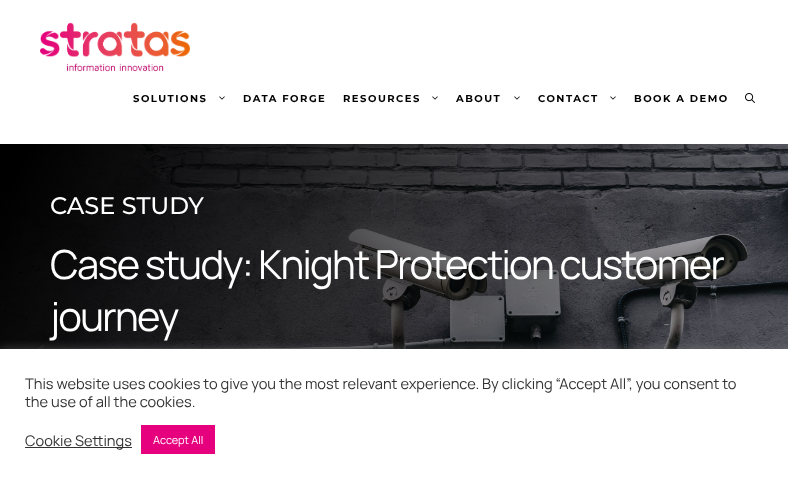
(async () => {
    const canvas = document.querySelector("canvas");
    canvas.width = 788;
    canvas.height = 484;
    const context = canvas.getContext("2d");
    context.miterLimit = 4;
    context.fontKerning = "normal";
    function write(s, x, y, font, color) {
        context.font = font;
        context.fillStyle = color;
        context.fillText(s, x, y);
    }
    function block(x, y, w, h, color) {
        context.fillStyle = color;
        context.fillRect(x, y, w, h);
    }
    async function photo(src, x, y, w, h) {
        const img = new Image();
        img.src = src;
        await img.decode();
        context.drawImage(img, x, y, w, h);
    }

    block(0, 0, 788, 484, "rgb(255, 255, 255)");
    await photo("media/1.png", 40, 22, 150, 50);
    context.letterSpacing = "1.5px";
    write("SOLUTIONS", 133, 102, "bold 10px Montserrat", "rgb(0, 0, 0)");
    await photo("media/2.png", 219, 96, 6, 4);
    write("DATA FORGE", 243, 102, "bold 10px Montserrat", "rgb(0, 0, 0)");
    write("RESOURCES", 343, 102, "bold 10px Montserrat", "rgb(0, 0, 0)");
    await photo("media/2.png", 432, 96, 6, 4);
    write("ABOUT", 456, 102, "bold 10px Montserrat", "rgb(0, 0, 0)");
    await photo("media/2.png", 514, 96, 6, 4);
    write("CONTACT", 538, 102, "bold 10px Montserrat", "rgb(0, 0, 0)");
    await photo("media/2.png", 610, 96, 6, 4);
    write("BOOK A DEMO", 634, 102, "bold 10px Montserrat", "rgb(0, 0, 0)");
    await photo("media/3.png", 745, 93, 10, 10);
    await photo("media/4.png", 0, 144, 788, 205);
    context.letterSpacing = "0px";
    write("CASE STUDY", 50, 214, "500 24px Montserrat", "rgb(255, 255, 255)");
    context.letterSpacing = "-1.7px";
    write("Case study: Knight Protection customer", 50, 279, "40px Manrope", "rgb(255, 255, 255)");
    write("journey", 50, 331, "40px Manrope", "rgb(255, 255, 255)");
    context.fillStyle = "rgba(172, 171, 171, 0.3)";
    context.filter = "blur(5px)";
    context.beginPath();
    context.rect(0, 348, 788, 135);
    context.fill();
    context.filter = "none";
    block(0, 349, 788, 135, "rgb(255, 255, 255)");
    context.letterSpacing = "0px";
    write("This website uses cookies to give you the most relevant experience. By clicking “Accept All”, you consent to", 25, 389, "14.65px Manrope", "rgb(51, 51, 51)");
    write("the use of all the cookies.", 25, 407, "14.65px Manrope", "rgb(51, 51, 51)");
    block(25, 447, 107, 1, "rgb(51, 51, 51)");
    write("Cookie Settings", 25, 446, "14.65px Manrope", "rgb(51, 51, 51)");
    block(141, 425, 74, 29, "rgb(230, 0, 126)");
    write("Accept All", 153, 444, "11px Manrope", "rgb(255, 255, 255)");
})();
